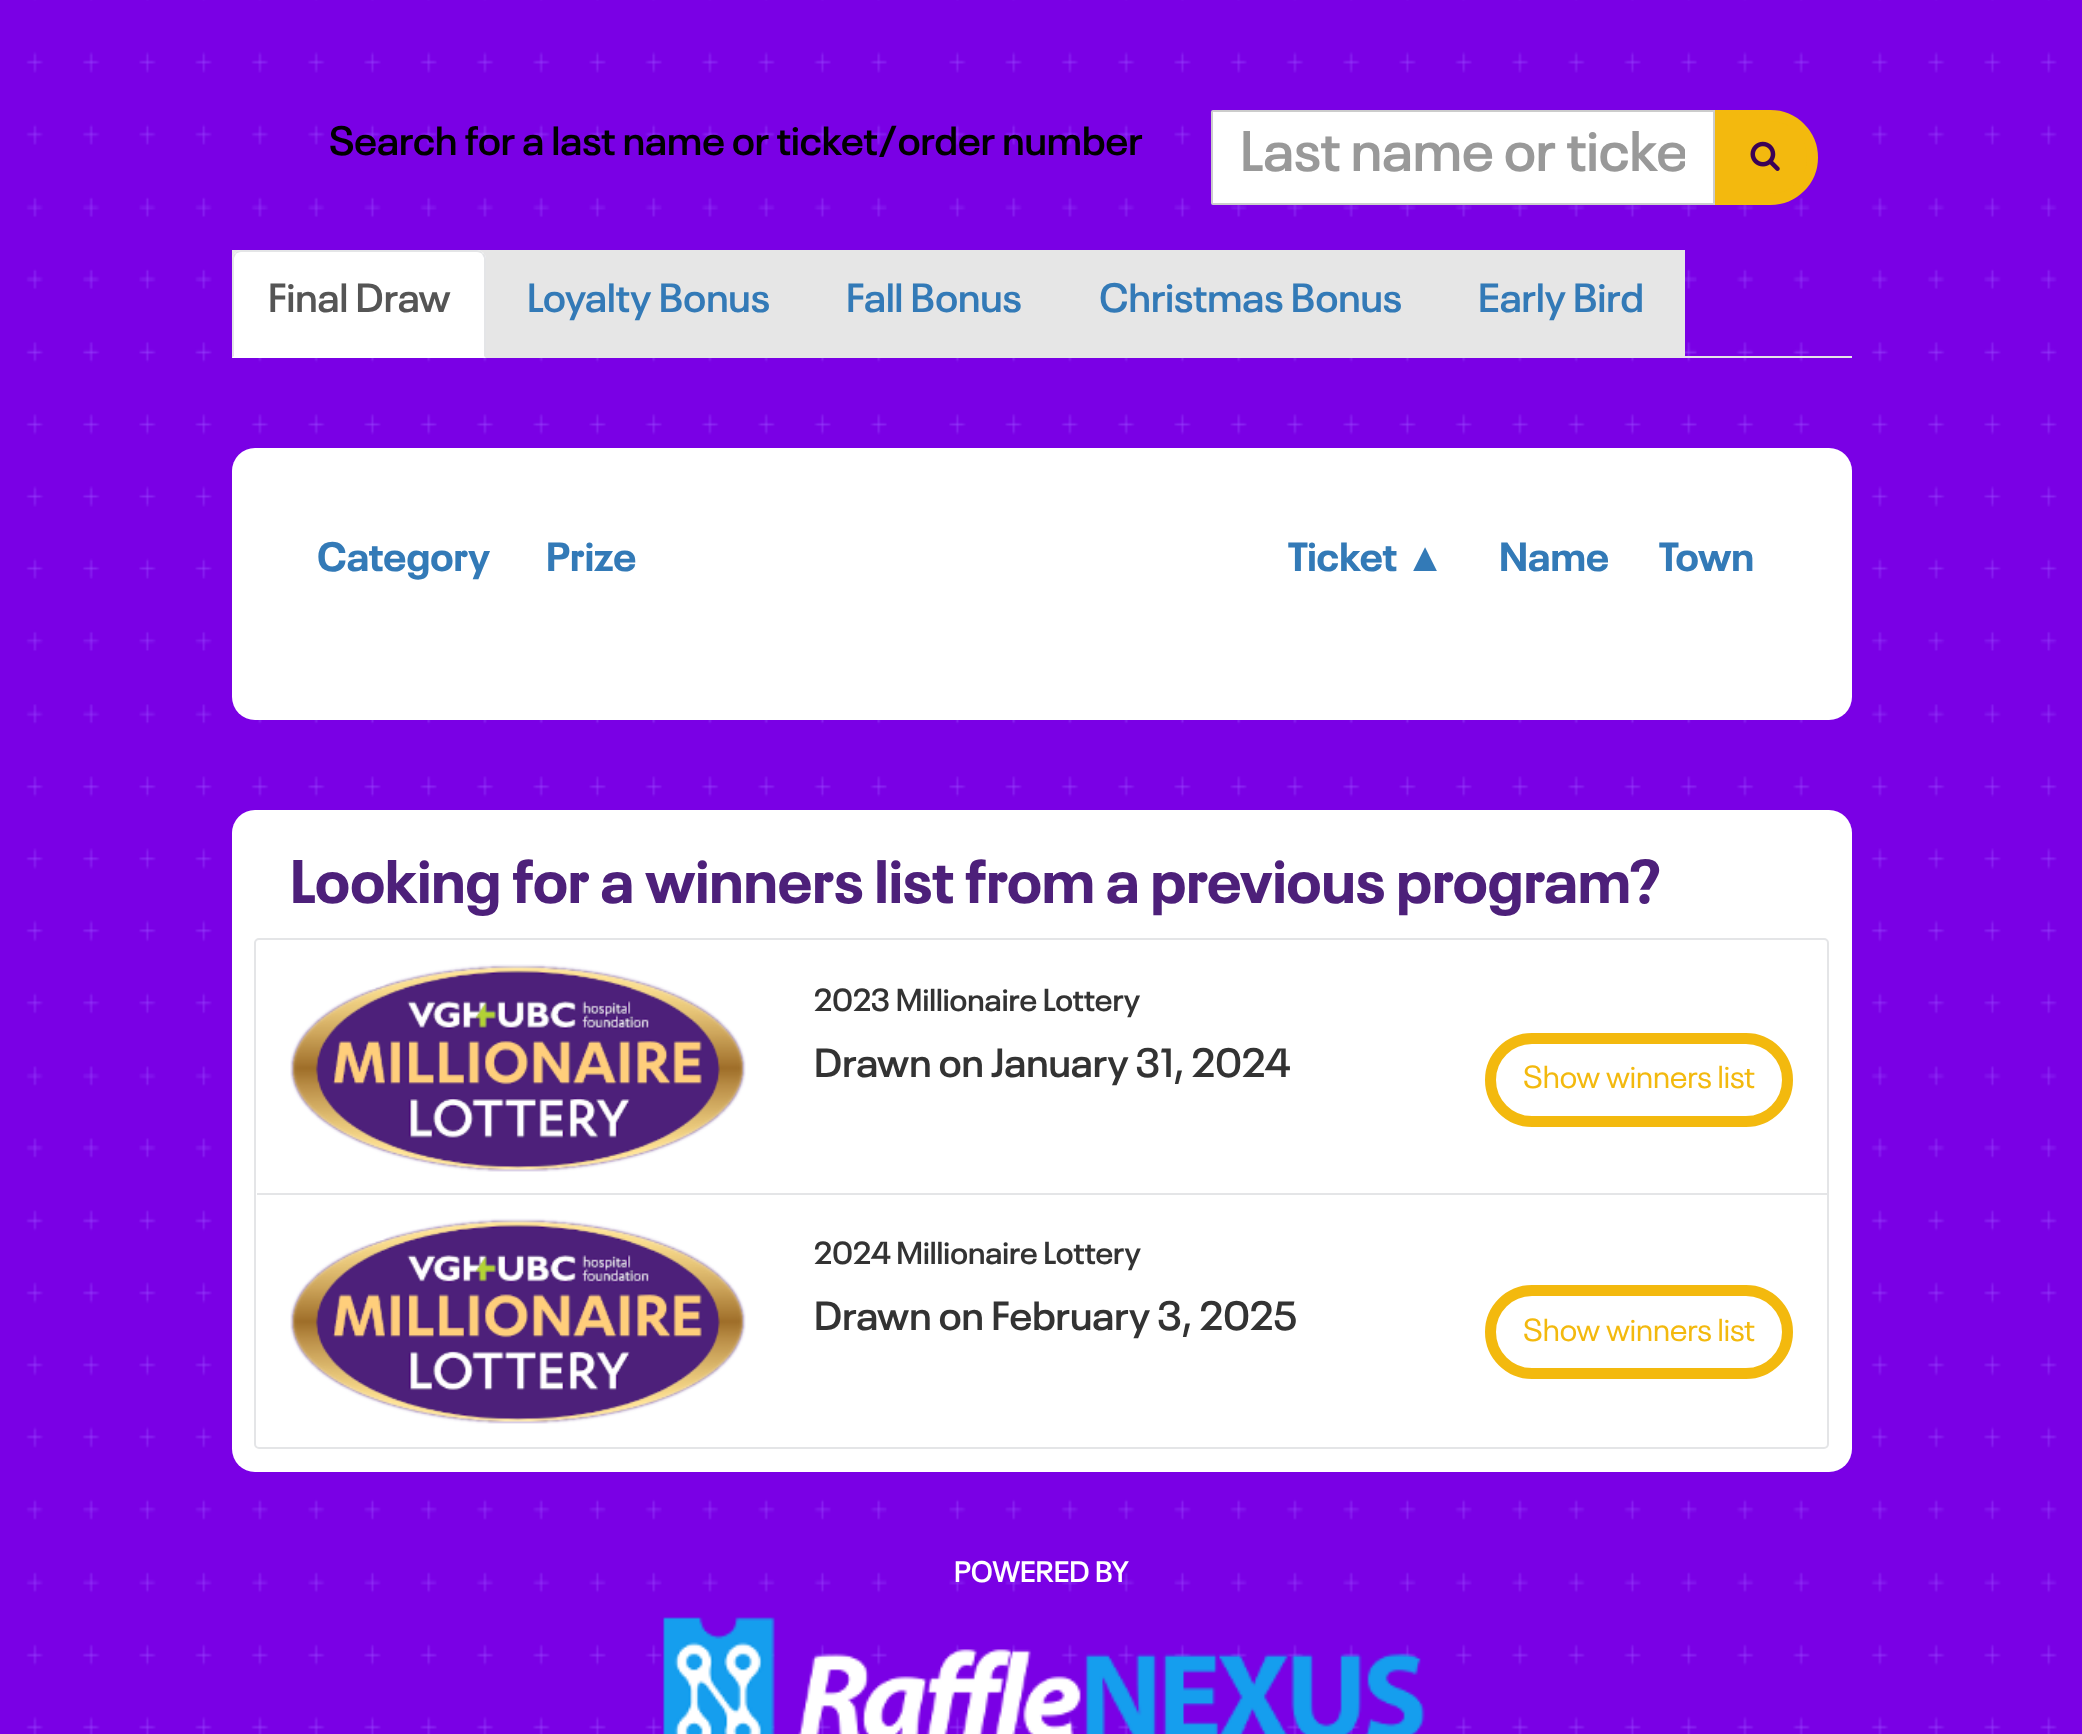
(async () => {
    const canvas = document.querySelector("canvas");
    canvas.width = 2082;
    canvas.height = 1734;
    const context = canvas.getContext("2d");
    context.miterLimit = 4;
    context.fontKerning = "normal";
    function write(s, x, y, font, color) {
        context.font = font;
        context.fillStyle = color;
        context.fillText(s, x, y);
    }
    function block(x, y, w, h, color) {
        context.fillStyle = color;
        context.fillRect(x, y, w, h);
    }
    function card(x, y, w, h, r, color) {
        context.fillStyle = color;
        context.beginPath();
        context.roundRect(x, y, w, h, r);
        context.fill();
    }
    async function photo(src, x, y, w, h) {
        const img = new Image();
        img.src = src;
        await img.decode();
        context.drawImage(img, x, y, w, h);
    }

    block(0, 0, 2082, 1734, "rgb(122, 0, 229)");
    await photo("media/1.png", 26, 0, 2031, 1734);
    write("Search for a last name or ticket/order number", 329, 155, "600 40.5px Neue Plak", "rgb(0, 0, 0)");
    context.fillStyle = "rgb(243, 185, 14)";
    context.beginPath();
    context.roundRect(1717.5, 115.5, 95, 84, [0, 42, 42, 0]);
    context.fill();
    context.strokeStyle = "rgb(243, 185, 14)";
    context.lineWidth = 11;
    context.stroke();
    context.fillStyle = "rgb(255, 255, 255)";
    context.beginPath();
    context.roundRect(1212, 111, 502, 93, [1, 0, 0, 1]);
    context.fill();
    context.strokeStyle = "rgb(204, 204, 204)";
    context.lineWidth = 2;
    context.stroke();
    context.save();
    context.beginPath();
    context.rect(1240, 119, 445, 77);
    context.clip();
    write("Last name or ticke", 1240, 171, "600 56.75px Neue Plak", "rgb(153, 153, 153)");
    context.restore();
    await photo("media/2.png", 1750, 141, 30, 30);
    block(1685, 356, 167, 2, "rgb(228, 229, 231)");
    block(232, 250, 1453, 108, "rgb(230, 230, 230)");
    context.fillStyle = "rgb(255, 255, 255)";
    context.beginPath();
    context.roundRect(232, 250, 254, 108, [9, 9, 0, 0]);
    context.fill();
    context.fillStyle = "rgb(228, 229, 231)";
    context.beginPath();
    context.moveTo(241, 250);
    context.bezierCurveTo(238, 250, 236, 251, 235, 253);
    context.lineTo(236, 254);
    context.bezierCurveTo(237, 253, 239, 252, 241, 252);
    context.lineTo(477, 252);
    context.bezierCurveTo(479, 252, 481, 253, 482, 254);
    context.lineTo(483, 253);
    context.bezierCurveTo(482, 251, 479, 250, 477, 250);
    context.closePath();
    context.fill();
    context.beginPath();
    context.moveTo(483, 253);
    context.bezierCurveTo(485, 254, 486, 256, 486, 259);
    context.lineTo(486, 358);
    context.lineTo(484, 356);
    context.lineTo(484, 258);
    context.lineTo(482, 254);
    context.closePath();
    context.fill();
    context.beginPath();
    context.moveTo(235, 253);
    context.bezierCurveTo(233, 254, 232, 256, 232, 259);
    context.lineTo(232, 358);
    context.lineTo(234, 356);
    context.lineTo(234, 258);
    context.lineTo(236, 254);
    context.closePath();
    context.fill();
    write("Final Draw", 268, 312, "600 40.5px Neue Plak", "rgb(85, 85, 85)");
    write("Loyalty Bonus", 527, 312, "600 40.5px Neue Plak", "rgb(51, 122, 183)");
    write("Fall Bonus", 846, 312, "600 40.5px Neue Plak", "rgb(51, 122, 183)");
    write("Christmas Bonus", 1099, 312, "600 40.5px Neue Plak", "rgb(51, 122, 183)");
    write("Early Bird", 1478, 312, "600 40.5px Neue Plak", "rgb(51, 122, 183)");
    card(232, 448, 1620, 272, 23, "rgb(255, 255, 255)");
    write("Category", 317, 571, "bold 40.5px Neue Plak", "rgb(51, 122, 183)");
    write("Prize", 546, 571, "bold 40.5px Neue Plak", "rgb(51, 122, 183)");
    write("Ticket", 1288, 571, "bold 40.5px Neue Plak", "rgb(51, 122, 183)");
    write("▲", 1405, 571, "bold 40.5px Liberation Serif", "rgb(51, 122, 183)");
    write("Name", 1499, 571, "bold 40.5px Neue Plak", "rgb(51, 122, 183)");
    write("Town", 1659, 571, "bold 40.5px Neue Plak", "rgb(51, 122, 183)");
    card(232, 810, 1620, 662, 23, "rgb(255, 255, 255)");
    write("Looking for a winners list from a previous program?", 290, 903, "bold 60.75px Neue Plak", "rgb(77, 32, 122)");
    context.beginPath();
    context.roundRect(255, 939, 1573, 509, 4);
    context.strokeStyle = "rgb(228, 229, 231)";
    context.stroke();
    await photo("media/3.png", 290, 964, 456, 208);
    write("2023 Millionaire Lottery", 814, 1011, "600 31.5px Neue Plak", "rgb(51, 51, 51)");
    write("Drawn on January 31, 2024", 814, 1077, "600 40.5px Neue Plak", "rgb(51, 51, 51)");
    context.beginPath();
    context.roundRect(1490.5, 1038.5, 297, 83, 41.5);
    context.strokeStyle = "rgb(243, 185, 14)";
    context.lineWidth = 11;
    context.stroke();
    write("Show winners list", 1523, 1088, "31.5px Neue Plak", "rgb(243, 185, 14)");
    block(257, 1193, 1570, 2, "rgb(228, 229, 231)");
    await photo("media/4.png", 290, 1218, 456, 206);
    write("2024 Millionaire Lottery", 814, 1264, "600 31.5px Neue Plak", "rgb(51, 51, 51)");
    write("Drawn on February 3, 2025", 814, 1330, "600 40.5px Neue Plak", "rgb(51, 51, 51)");
    context.beginPath();
    context.roundRect(1490.5, 1290.5, 297, 83, 41.5);
    context.stroke();
    write("Show winners list", 1523, 1341, "31.5px Neue Plak", "rgb(243, 185, 14)");
    write("POWERED BY", 954, 1582, "600 29.25px Neue Plak", "rgb(255, 255, 255)");
    await photo("media/5.png", 663, 1617, 762, 117);
})();
